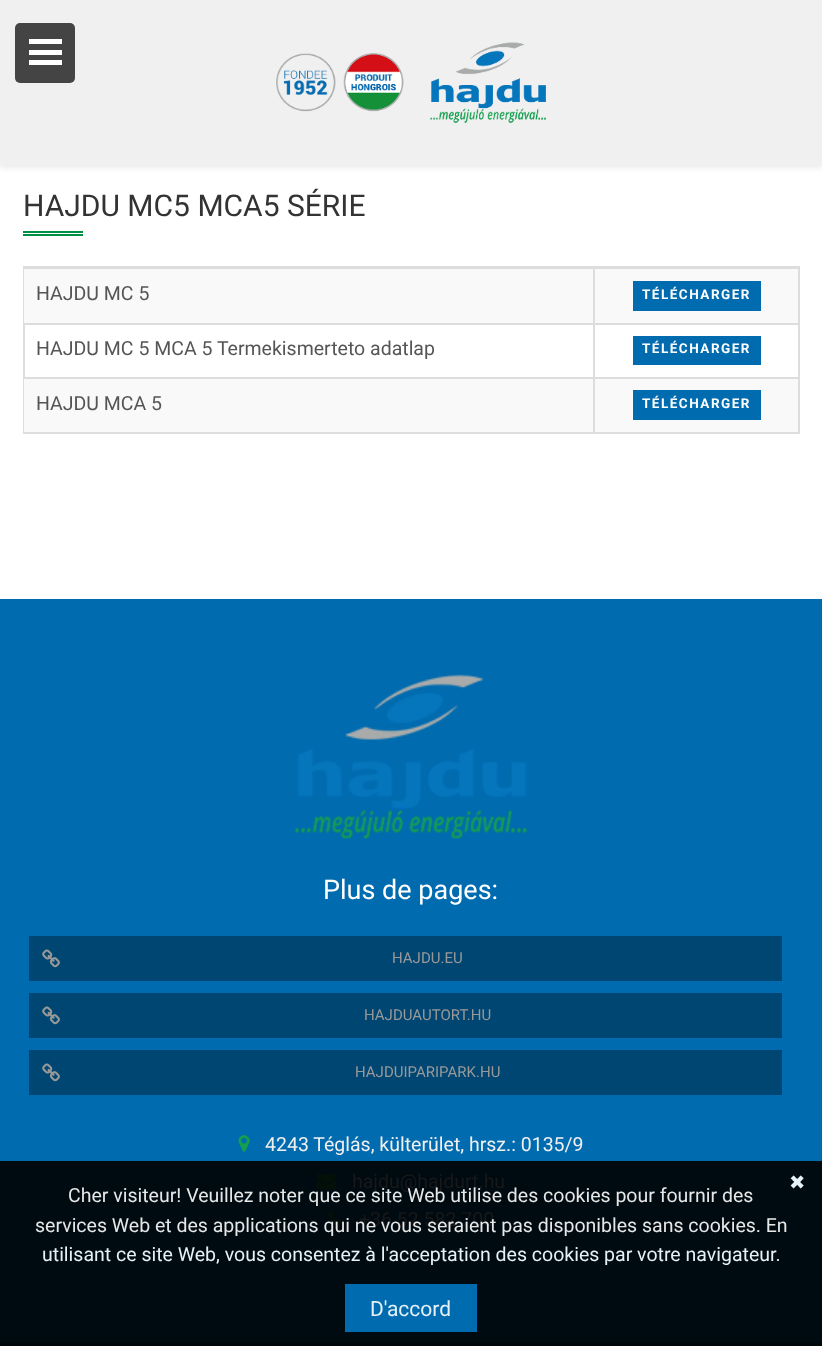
(async () => {
    const canvas = document.querySelector("canvas");
    canvas.width = 822;
    canvas.height = 1346;
    const context = canvas.getContext("2d");
    context.miterLimit = 4;
    context.fontKerning = "normal";
    function write(s, x, y, font, color) {
        context.font = font;
        context.fillStyle = color;
        context.fillText(s, x, y);
    }
    function block(x, y, w, h, color) {
        context.fillStyle = color;
        context.fillRect(x, y, w, h);
    }
    function card(x, y, w, h, r, color) {
        context.fillStyle = color;
        context.beginPath();
        context.roundRect(x, y, w, h, r);
        context.fill();
    }
    async function photo(src, x, y, w, h) {
        const img = new Image();
        img.src = src;
        await img.decode();
        context.drawImage(img, x, y, w, h);
    }

    block(0, 0, 822, 1346, "rgb(255, 255, 255)");
    context.fillStyle = "rgba(0, 0, 0, 0.1)";
    context.filter = "blur(3px)";
    context.beginPath();
    context.rect(0, 2, 822, 165);
    context.fill();
    context.filter = "none";
    block(0, 0, 822, 165, "rgb(240, 240, 240)");
    await photo("media/1.png", 276, 42, 270, 81);
    card(15, 23, 60, 60, 5, "rgb(68, 68, 68)");
    block(29, 39, 33, 5, "rgb(255, 255, 255)");
    block(29, 50, 33, 5, "rgb(255, 255, 255)");
    block(29, 60, 33, 5, "rgb(255, 255, 255)");
    write("HAJDU MC5 MCA5 SÉRIE", 23, 216, "30px Roboto", "rgb(51, 51, 51)");
    block(23, 231, 60, 2, "rgb(0, 144, 67)");
    block(23, 234, 60, 2, "rgb(0, 144, 67)");
    context.strokeStyle = "rgb(221, 221, 221)";
    context.lineWidth = 2;
    context.strokeRect(24, 267, 775, 166);
    block(24, 269, 774, 54, "rgb(249, 249, 249)");
    block(593, 268, 205, 1, "rgb(221, 221, 221)");
    block(593, 323, 205, 2, "rgb(221, 221, 221)");
    block(593, 377, 205, 2, "rgb(221, 221, 221)");
    block(24, 379, 774, 53, "rgb(249, 249, 249)");
    block(593, 377, 2, 55, "rgb(221, 221, 221)");
    block(24, 377, 570, 2, "rgb(221, 221, 221)");
    block(593, 323, 2, 55, "rgb(221, 221, 221)");
    block(24, 323, 570, 2, "rgb(221, 221, 221)");
    block(593, 267, 2, 57, "rgb(221, 221, 221)");
    block(24, 268, 570, 1, "rgb(221, 221, 221)");
    write("HAJDU MC 5", 36, 300, "19.5px Roboto", "rgb(85, 85, 85)");
    block(633, 281, 128, 30, "rgb(0, 107, 175)");
    context.letterSpacing = "1.5px";
    write("TÉLÉCHARGER", 642, 299, "bold 13.5px Roboto", "rgb(255, 255, 255)");
    context.letterSpacing = "0px";
    write("HAJDU MC 5 MCA 5 Termekismerteto adatlap", 36, 355, "19.5px Roboto", "rgb(85, 85, 85)");
    block(633, 336, 128, 29, "rgb(0, 107, 175)");
    context.letterSpacing = "1.5px";
    write("TÉLÉCHARGER", 642, 353, "bold 13.5px Roboto", "rgb(255, 255, 255)");
    context.letterSpacing = "0px";
    write("HAJDU MCA 5", 36, 410, "19.5px Roboto", "rgb(85, 85, 85)");
    block(633, 390, 128, 30, "rgb(0, 107, 175)");
    context.letterSpacing = "1.5px";
    write("TÉLÉCHARGER", 642, 408, "bold 13.5px Roboto", "rgb(255, 255, 255)");
    block(0, 599, 822, 562, "rgb(0, 107, 175)");
    block(0, 1161, 822, 182, "rgb(0, 11, 17)");
    await photo("media/2.png", 295, 674, 232, 165);
    context.letterSpacing = "0px";
    write("Plus de pages:", 323, 899, "27px Roboto", "rgb(255, 255, 255)");
    block(29, 936, 753, 45, "rgb(0, 70, 114)");
    await photo("media/3.png", 42, 949, 18, 19);
    write("HAJDU.EU", 392, 963, "15px Roboto", "rgb(153, 153, 153)");
    block(29, 993, 753, 45, "rgb(0, 70, 114)");
    await photo("media/3.png", 42, 1006, 18, 19);
    write("HAJDUAUTORT.HU", 364, 1020, "15px Roboto", "rgb(153, 153, 153)");
    block(29, 1050, 753, 45, "rgb(0, 70, 114)");
    await photo("media/3.png", 42, 1063, 18, 19);
    write("HAJDUIPARIPARK.HU", 355, 1077, "15px Roboto", "rgb(153, 153, 153)");
    await photo("media/4.png", 238, 1135, 12, 17);
    write("4243 Téglás, külterület, hrsz.: 0135/9", 265, 1151, "19.5px Roboto", "rgb(240, 240, 240)");
    await photo("media/5.png", 316, 1174, 20, 16);
    write("hajdu@hajdurt.hu", 352, 1188, "19.5px Roboto", "rgb(24, 24, 24)");
    await photo("media/6.png", 328, 1210, 16, 16);
    write("+36 52 582 700", 359, 1226, "19.5px Roboto", "rgb(24, 24, 24)");
    block(0, 1343, 822, 3, "rgb(0, 7, 11)");
    write("✖", 789, 1189, "19.5px DejaVu Sans", "rgb(230, 240, 247)");
    write("Cher visiteur! Veuillez noter que ce site Web utilise des cookies pour fournir des", 68, 1202, "19.5px Roboto", "rgb(230, 231, 231)");
    write("services Web et des applications qui ne vous seraient pas disponibles sans cookies. En", 35, 1232, "19.5px Roboto", "rgb(230, 231, 231)");
    write("utilisant ce site Web, vous consentez à l'acceptation des cookies par votre navigateur.", 42, 1261, "19.5px Roboto", "rgb(230, 240, 247)");
    block(345, 1284, 132, 48, "rgb(0, 107, 175)");
    write("D'accord", 370, 1316, "21px Roboto", "rgb(230, 240, 247)");
})();
